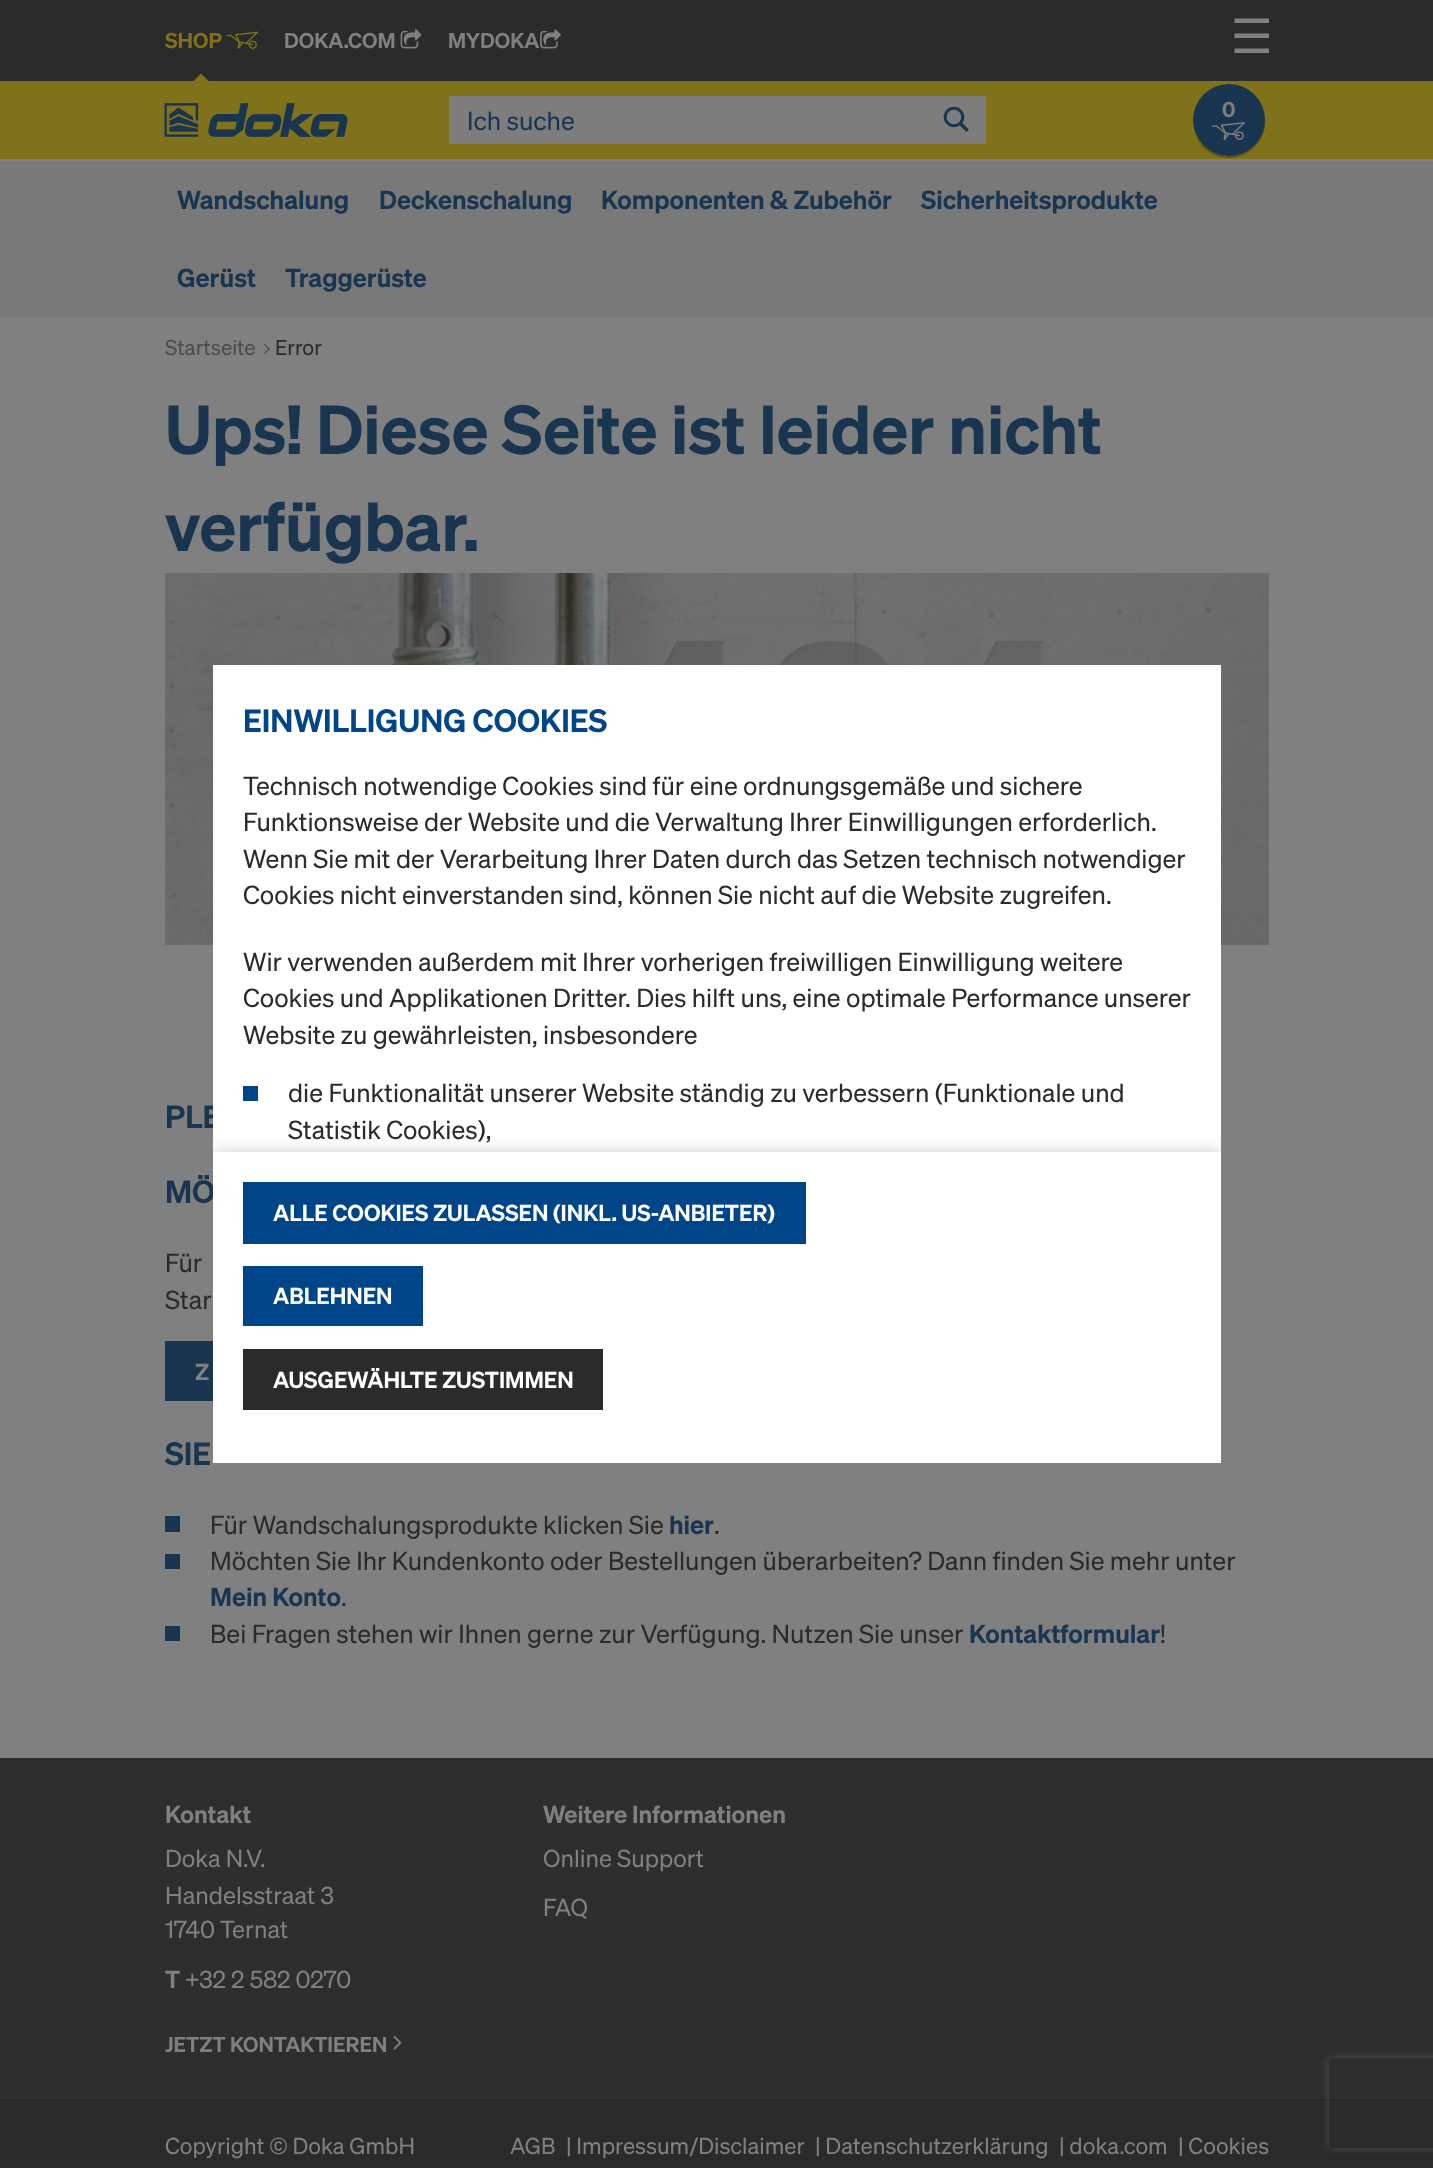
(async () => {
    const canvas = document.querySelector("canvas");
    canvas.width = 1433;
    canvas.height = 2168;
    const context = canvas.getContext("2d");
    context.miterLimit = 4;
    context.fontKerning = "normal";
    function write(s, x, y, font, color) {
        context.font = font;
        context.fillStyle = color;
        context.fillText(s, x, y);
    }
    function block(x, y, w, h, color) {
        context.fillStyle = color;
        context.fillRect(x, y, w, h);
    }
    async function photo(src, x, y, w, h) {
        const img = new Image();
        img.src = src;
        await img.decode();
        context.drawImage(img, x, y, w, h);
    }

    block(0, 0, 1433, 2168, "rgb(128, 128, 128)");
    block(0, 0, 1433, 81, "rgb(43, 43, 43)");
    write("SHOP", 165, 48, "600 21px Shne", "rgb(128, 114, 26)");
    await photo("media/1.png", 226, 31, 32, 18);
    block(0, 81, 1433, 78, "rgb(128, 114, 26)");
    context.beginPath();
    context.moveTo(211.5, 84);
    context.lineTo(190.5, 84);
    context.lineTo(201, 73.5);
    context.closePath();
    context.fill();
    write("DOKA.COM", 284, 48, "600 21px Shne", "rgb(128, 128, 128)");
    await photo("media/2.png", 400, 29, 22, 20);
    write("MYDOKA", 448, 48, "600 21px Shne", "rgb(128, 128, 128)");
    await photo("media/3.png", 540, 29, 21, 20);
    context.beginPath();
    context.moveTo(1234.5, 18.5);
    context.lineTo(1234.5, 23);
    context.lineTo(1269, 23);
    context.lineTo(1269, 18.5);
    context.closePath();
    context.moveTo(1234.5, 38);
    context.lineTo(1269, 38);
    context.lineTo(1269, 33.5);
    context.lineTo(1234.5, 33.5);
    context.closePath();
    context.moveTo(1234.5, 53);
    context.lineTo(1269, 53);
    context.lineTo(1269, 48.5);
    context.lineTo(1234.5, 48.5);
    context.closePath();
    context.fill();
    await photo("media/4.png", 164, 103, 184, 34);
    block(449, 96, 537, 48, "rgb(125, 125, 125)");
    write("Ich suche", 467, 130, "25.5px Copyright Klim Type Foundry", "rgb(26, 53, 80)");
    await photo("media/5.png", 943, 106, 26, 26);
    context.fillStyle = "rgb(92, 83, 26)";
    context.beginPath();
    context.moveTo(1194, 130);
    context.bezierCurveTo(1196, 138, 1200, 145, 1206, 150);
    context.bezierCurveTo(1234, 172, 1273, 145, 1264, 112);
    context.bezierCurveTo(1265, 119, 1265, 127, 1262, 134);
    context.bezierCurveTo(1249, 165, 1203, 162, 1194, 130);
    context.closePath();
    context.fill();
    context.fillStyle = "rgb(26, 53, 80)";
    context.beginPath();
    context.arc(1229, 120, 36, 0, Math.PI * 2);
    context.fill();
    write("0", 1222, 117, "600 21px Shne", "rgb(128, 128, 128)");
    await photo("media/6.png", 1212, 122, 33, 19);
    block(0, 161, 1433, 157, "rgb(121, 121, 121)");
    write("Wandschalung", 177, 209, "600 25.5px Shne", "rgb(26, 53, 80)");
    write("Deckenschalung", 379, 209, "600 25.5px Shne", "rgb(26, 53, 80)");
    write("Komponenten & Zubehör", 601, 209, "600 25.5px Shne", "rgb(26, 53, 80)");
    write("Sicherheitsprodukte", 921, 209, "600 25.5px Shne", "rgb(26, 53, 80)");
    write("Gerüst", 177, 287, "600 25.5px Shne", "rgb(26, 53, 80)");
    write("Traggerüste", 285, 287, "600 25.5px Shne", "rgb(26, 53, 80)");
    write("Startseite", 165, 355, "21px Copyright Klim Type Foundry", "rgb(77, 77, 77)");
    await photo("media/7.png", 264, 344, 6, 10);
    write("Error", 275, 355, "21px Copyright Klim Type Foundry", "rgb(43, 43, 43)");
    write("Ups! Diese Seite ist leider nicht", 165, 454, "600 67.5px Shne", "rgb(26, 53, 80)");
    write("verfügbar.", 165, 551, "600 67.5px Shne", "rgb(26, 53, 80)");
    await photo("media/8.png", 165, 573, 1104, 372);
    write("PLE", 165, 1128, "600 31.5px Shne", "rgb(26, 53, 80)");
    write("MÖ", 165, 1203, "600 31.5px Shne", "rgb(26, 53, 80)");
    write("Für", 165, 1272, "25.5px Copyright Klim Type Foundry", "rgb(43, 43, 43)");
    write("Star", 165, 1309, "25.5px Copyright Klim Type Foundry", "rgb(43, 43, 43)");
    block(165, 1341, 48, 60, "rgb(26, 53, 80)");
    write("Z", 195, 1380, "600 22.5px Shne", "rgb(128, 128, 128)");
    write("SIE", 165, 1465, "600 31.5px Shne", "rgb(26, 53, 80)");
    block(165, 1516, 15, 16, "rgb(26, 53, 80)");
    write("Für Wandschalungsprodukte klicken Sie", 210, 1534, "25.5px Copyright Klim Type Foundry", "rgb(43, 43, 43)");
    write("hier", 669, 1534, "600 25.5px Shne", "rgb(26, 53, 80)");
    write(".", 714, 1534, "25.5px Copyright Klim Type Foundry", "rgb(43, 43, 43)");
    block(165, 1554, 15, 15, "rgb(26, 53, 80)");
    write("Möchten Sie Ihr Kundenkonto oder Bestellungen überarbeiten? Dann finden Sie mehr unter", 210, 1570, "25.5px Copyright Klim Type Foundry", "rgb(43, 43, 43)");
    write("Mein Konto", 210, 1606, "600 25.5px Shne", "rgb(26, 53, 80)");
    write(".", 341, 1606, "25.5px Copyright Klim Type Foundry", "rgb(43, 43, 43)");
    block(165, 1626, 15, 15, "rgb(26, 53, 80)");
    write("Bei Fragen stehen wir Ihnen gerne zur Verfügung. Nutzen Sie unser", 210, 1643, "25.5px Copyright Klim Type Foundry", "rgb(43, 43, 43)");
    write("Kontaktformular", 969, 1643, "600 25.5px Shne", "rgb(26, 53, 80)");
    write("!", 1160, 1643, "25.5px Copyright Klim Type Foundry", "rgb(43, 43, 43)");
    block(0, 1758, 1433, 341, "rgb(46, 46, 46)");
    write("Kontakt", 165, 1823, "600 24px Shne", "rgb(128, 128, 128)");
    write("Doka N.V.", 165, 1867, "24px Copyright Klim Type Foundry", "rgb(128, 128, 128)");
    write("Handelsstraat 3", 165, 1904, "24px Copyright Klim Type Foundry", "rgb(128, 128, 128)");
    write("1740 Ternat", 165, 1938, "24px Copyright Klim Type Foundry", "rgb(128, 128, 128)");
    write("T", 165, 1988, "600 24px Shne", "rgb(128, 128, 128)");
    write("+32 2 582 0270", 185, 1988, "24px Copyright Klim Type Foundry", "rgb(128, 128, 128)");
    write("JETZT KONTAKTIEREN", 165, 2052, "600 21px Shne", "rgb(128, 128, 128)");
    await photo("media/9.png", 393, 2036, 9, 14);
    write("Weitere Informationen", 543, 1823, "600 24px Shne", "rgb(128, 128, 128)");
    write("Online Support", 543, 1867, "24px Copyright Klim Type Foundry", "rgb(128, 128, 128)");
    write("FAQ", 543, 1916, "24px Copyright Klim Type Foundry", "rgb(128, 128, 128)");
    block(0, 2101, 1433, 67, "rgb(43, 43, 43)");
    block(0, 2099, 1433, 2, "rgb(39, 39, 39)");
    write("Copyright © Doka GmbH", 165, 2154, "22.5px Copyright Klim Type Foundry", "rgb(128, 128, 128)");
    write("AGB", 510, 2154, "22.5px Copyright Klim Type Foundry", "rgb(128, 128, 128)");
    write("| Impressum/Disclaimer", 566, 2154, "22.5px Copyright Klim Type Foundry", "rgb(128, 128, 128)");
    write("| Datenschutzerklärung", 815, 2154, "22.5px Copyright Klim Type Foundry", "rgb(128, 128, 128)");
    write("| doka.com", 1059, 2154, "22.5px Copyright Klim Type Foundry", "rgb(128, 128, 128)");
    write("| Cookies", 1178, 2154, "22.5px Copyright Klim Type Foundry", "rgb(128, 128, 128)");
    block(213, 665, 1008, 487, "rgb(255, 255, 255)");
    write("EINWILLIGUNG COOKIES", 243, 732, "600 31.5px Shne", "rgb(0, 69, 136)");
    write("Technisch notwendige Cookies sind für eine ordnungsgemäße und sichere", 243, 795, "25.5px Copyright Klim Type Foundry", "rgb(43, 43, 43)");
    write("Funktionsweise der Website und die Verwaltung Ihrer Einwilligungen erforderlich.", 243, 831, "25.5px Copyright Klim Type Foundry", "rgb(43, 43, 43)");
    write("Wenn Sie mit der Verarbeitung Ihrer Daten durch das Setzen technisch notwendiger", 243, 868, "25.5px Copyright Klim Type Foundry", "rgb(43, 43, 43)");
    write("Cookies nicht einverstanden sind, können Sie nicht auf die Website zugreifen.", 243, 904, "25.5px Copyright Klim Type Foundry", "rgb(43, 43, 43)");
    write("Wir verwenden außerdem mit Ihrer vorherigen freiwilligen Einwilligung weitere", 243, 971, "25.5px Copyright Klim Type Foundry", "rgb(43, 43, 43)");
    write("Cookies und Applikationen Dritter. Dies hilft uns, eine optimale Performance unserer", 243, 1007, "25.5px Copyright Klim Type Foundry", "rgb(43, 43, 43)");
    write("Website zu gewährleisten, insbesondere", 243, 1044, "25.5px Copyright Klim Type Foundry", "rgb(43, 43, 43)");
    block(243, 1086, 15, 15, "rgb(0, 69, 136)");
    write("die Funktionalität unserer Website ständig zu verbessern (Funktionale und", 288, 1102, "25.5px Copyright Klim Type Foundry", "rgb(43, 43, 43)");
    context.save();
    context.beginPath();
    context.rect(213, 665, 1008, 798);
    context.clip();
    context.fillStyle = "rgba(0, 0, 0, 0.2)";
    context.filter = "blur(7.5px)";
    context.beginPath();
    context.rect(213, 1152, 1008, 311);
    context.fill();
    context.filter = "none";
    context.restore();
    write("Statistik Cookies),", 288, 1139, "25.5px Copyright Klim Type Foundry", "rgb(43, 43, 43)");
    block(213, 1152, 1008, 311, "rgb(255, 255, 255)");
    block(243, 1182, 563, 62, "rgb(0, 69, 136)");
    write("ALLE COOKIES ZULASSEN (INKL. US-ANBIETER)", 273, 1221, "600 22.5px Shne", "rgb(255, 255, 255)");
    block(243, 1266, 180, 60, "rgb(0, 69, 136)");
    write("ABLEHNEN", 273, 1304, "600 22.5px Shne", "rgb(255, 255, 255)");
    block(243, 1349, 360, 61, "rgb(43, 43, 43)");
    write("AUSGEWÄHLTE ZUSTIMMEN", 273, 1388, "600 22.5px Shne", "rgb(255, 255, 255)");
    context.save();
    context.beginPath();
    context.moveTo(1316, 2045);
    context.lineTo(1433, 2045);
    context.lineTo(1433, 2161);
    context.lineTo(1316, 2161);
    context.closePath();
    context.moveTo(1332, 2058);
    context.lineTo(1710, 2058);
    context.bezierCurveTo(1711.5, 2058, 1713, 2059.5, 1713, 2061);
    context.lineTo(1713, 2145);
    context.bezierCurveTo(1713, 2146.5, 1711.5, 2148, 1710, 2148);
    context.lineTo(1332, 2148);
    context.bezierCurveTo(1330.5, 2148, 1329, 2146.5, 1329, 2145);
    context.lineTo(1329, 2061);
    context.bezierCurveTo(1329, 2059.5, 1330.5, 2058, 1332, 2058);
    context.closePath();
    context.clip("evenodd");
    context.fillStyle = "rgb(77, 77, 77)";
    context.filter = "blur(4px)";
    context.beginPath();
    context.roundRect(1329, 2058, 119, 90, 3);
    context.fill();
    context.filter = "none";
    context.restore();
})();
